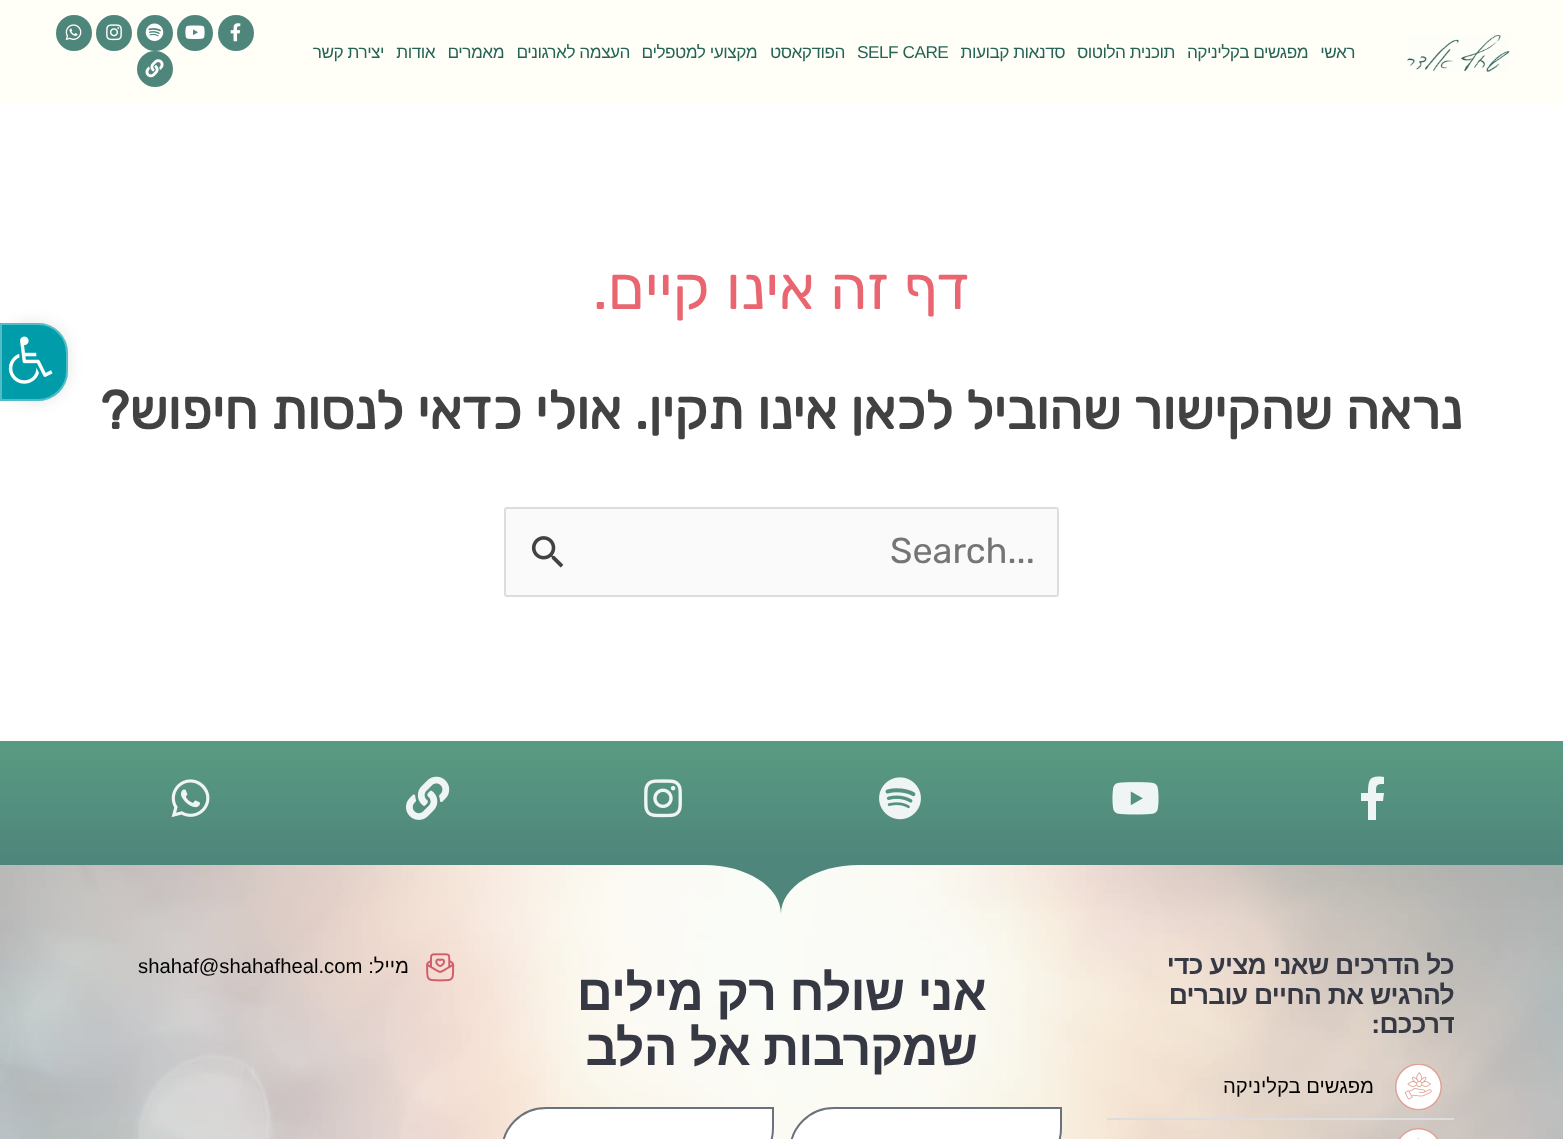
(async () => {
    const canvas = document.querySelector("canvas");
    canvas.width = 1563;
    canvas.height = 1139;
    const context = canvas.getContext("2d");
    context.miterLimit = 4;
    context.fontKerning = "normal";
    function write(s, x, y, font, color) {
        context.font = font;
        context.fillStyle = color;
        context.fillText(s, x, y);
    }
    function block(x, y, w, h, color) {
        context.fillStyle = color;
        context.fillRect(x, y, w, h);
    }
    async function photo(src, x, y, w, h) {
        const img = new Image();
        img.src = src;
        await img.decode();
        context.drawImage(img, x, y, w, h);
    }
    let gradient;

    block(0, 0, 1563, 1139, "rgb(255, 255, 255)");
    block(0, 0, 1563, 104, "rgb(255, 255, 247)");
    await photo("media/1.png", 1407, 35, 103, 37);
    context.letterSpacing = "-0.5px";
    context.direction = "rtl";
    write("ראשי", 1355, 58, "17.25px Liberation Sans", "rgb(37, 99, 86)");
    write("מפגשים בקליניקה", 1308, 58, "17.25px Liberation Sans", "rgb(37, 99, 86)");
    write("תוכנית הלוטוס", 1175, 58, "17.25px Liberation Sans", "rgb(37, 99, 86)");
    write("סדנאות קבועות", 1065, 58, "17.25px Liberation Sans", "rgb(37, 99, 86)");
    context.direction = "ltr";
    write("SELF CARE", 857, 58, "17.25px Liberation Sans", "rgb(37, 99, 86)");
    context.direction = "rtl";
    write("הפודקאסט", 845, 58, "17.25px Liberation Sans", "rgb(37, 99, 86)");
    write("מקצועי למטפלים", 757, 58, "17.25px Liberation Sans", "rgb(37, 99, 86)");
    write("העצמה לארגונים", 630, 58, "17.25px Liberation Sans", "rgb(37, 99, 86)");
    write("מאמרים", 504, 58, "17.25px Liberation Sans", "rgb(37, 99, 86)");
    write("אודות", 435, 58, "17.25px Liberation Sans", "rgb(37, 99, 86)");
    write("יצירת קשר", 384, 58, "17.25px Liberation Sans", "rgb(37, 99, 86)");
    context.fillStyle = "rgb(79, 134, 123)";
    context.beginPath();
    context.arc(236, 33, 18, 0, Math.PI * 2);
    context.fill();
    await photo("media/2.png", 230, 23, 11, 19);
    context.beginPath();
    context.arc(195, 33, 18, 0, Math.PI * 2);
    context.fill();
    await photo("media/3.png", 185, 25, 20, 14);
    context.beginPath();
    context.arc(155, 33, 18, 0, Math.PI * 2);
    context.fill();
    await photo("media/4.png", 145, 23, 19, 18);
    context.beginPath();
    context.arc(114, 33, 18, 0, Math.PI * 2);
    context.fill();
    await photo("media/5.png", 106, 24, 16, 17);
    context.beginPath();
    context.arc(74, 33, 18, 0, Math.PI * 2);
    context.fill();
    await photo("media/6.png", 65, 24, 17, 17);
    context.beginPath();
    context.arc(155, 69, 18, 0, Math.PI * 2);
    context.fill();
    await photo("media/7.png", 145, 59, 19, 19);
    context.letterSpacing = "0px";
    context.wordSpacing = "1px";
    write("דף זה אינו קיים.", 970, 309, "300 60px Rubik", "rgb(233, 102, 113)");
    context.wordSpacing = "0.25px";
    write("נראה שהקישור שהוביל לכאן אינו תקין. אולי כדאי לנסות חיפוש?", 1462, 429, "bold 54px Rubik", "rgb(66, 66, 66)");
    context.fillStyle = "rgb(250, 250, 250)";
    context.beginPath();
    context.roundRect(505, 508, 553, 88, 2);
    context.fill();
    context.strokeStyle = "rgb(221, 221, 221)";
    context.lineWidth = 2;
    context.stroke();
    context.wordSpacing = "0px";
    context.direction = "ltr";
    write("Search...", 890, 563, "300 36px Rubik", "rgb(117, 117, 117)");
    await photo("media/8.png", 531, 536, 33, 32);
    gradient = context.createLinearGradient(782, 741, 782, 858);
    gradient.addColorStop(0, "rgb(89, 155, 130)");
    gradient.addColorStop(1, "rgb(79, 134, 123)");
    context.fillStyle = gradient;
    context.fillRect(0, 741, 1563, 116);
    context.fillStyle = "rgb(239, 245, 244)";
    context.beginPath();
    context.moveTo(1383, 801);
    context.lineTo(1376, 801);
    context.lineTo(1376, 820);
    context.lineTo(1368, 820);
    context.lineTo(1368, 801);
    context.lineTo(1361, 801);
    context.lineTo(1361, 793);
    context.lineTo(1368, 793);
    context.bezierCurveTo(1368, 779, 1370, 775, 1384, 777);
    context.lineTo(1384, 784);
    context.bezierCurveTo(1376, 784, 1376, 785, 1376, 793);
    context.lineTo(1384, 793);
    context.closePath();
    context.fill();
    await photo("media/9.png", 1112, 782, 47, 33);
    await photo("media/10.png", 879, 777, 42, 43);
    await photo("media/11.png", 644, 779, 38, 39);
    await photo("media/12.png", 406, 776, 44, 44);
    await photo("media/13.png", 171, 779, 39, 39);
    await photo("media/14.png", 0, 865, 1563, 274);
    context.save();
    context.beginPath();
    context.rect(0, 857, 1563, 58);
    context.clip();
    context.fillStyle = "rgb(79, 134, 123)";
    context.beginPath();
    context.moveTo(-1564, 856);
    context.lineTo(-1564, 865);
    context.lineTo(704, 865);
    context.bezierCurveTo(747, 865, 781, 887, 781, 914);
    context.bezierCurveTo(781, 887, 816, 865, 859, 865);
    context.lineTo(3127, 865);
    context.lineTo(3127, 856);
    context.closePath();
    context.fill();
    context.restore();
    context.letterSpacing = "-0.75px";
    context.direction = "rtl";
    write("כל הדרכים שאני מציע כדי", 1454, 974, "bold 26.5px Liberation Sans", "rgb(54, 57, 68)");
    write("להרגיש את החיים עוברים", 1454, 1004, "bold 26.5px Liberation Sans", "rgb(54, 57, 68)");
    write("דרככם:", 1454, 1033, "bold 26.5px Liberation Sans", "rgb(54, 57, 68)");
    await photo("media/15.png", 1395, 1064, 47, 46);
    context.letterSpacing = "0px";
    write("מפגשים בקליניקה", 1374, 1093, "20.25px Liberation Sans", "rgb(0, 0, 0)");
    block(1107, 1118, 347, 2, "rgb(221, 221, 221)");
    await photo("media/16.png", 1398, 1128, 40, 11);
    await photo("media/17.png", 426, 953, 29, 29);
    write("מייל:", 409, 973, "20.25px Liberation Sans", "rgb(0, 0, 0)");
    context.direction = "ltr";
    write("shahaf@shahafheal.com", 138, 973, "20.25px Liberation Sans", "rgb(0, 0, 0)");
    context.letterSpacing = "-0.75px";
    context.direction = "rtl";
    write("אני שולח רק מילים", 986, 1010, "bold 50px Liberation Sans", "rgb(54, 57, 68)");
    write("שמקרבות אל הלב", 977, 1065, "bold 50px Liberation Sans", "rgb(54, 57, 68)");
    context.fillStyle = "rgb(255, 255, 255)";
    context.beginPath();
    context.moveTo(834, 1108);
    context.lineTo(1061, 1108);
    context.lineTo(1061, 1128);
    context.bezierCurveTo(1061, 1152.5, 1041.5, 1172, 1017, 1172);
    context.lineTo(790, 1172);
    context.lineTo(790, 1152);
    context.bezierCurveTo(790, 1127.5, 809.5, 1108, 834, 1108);
    context.closePath();
    context.fill();
    context.strokeStyle = "rgb(105, 114, 125)";
    context.stroke();
    context.beginPath();
    context.moveTo(546, 1108);
    context.lineTo(773, 1108);
    context.lineTo(773, 1128);
    context.bezierCurveTo(773, 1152.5, 753.5, 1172, 729, 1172);
    context.lineTo(502, 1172);
    context.lineTo(502, 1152);
    context.bezierCurveTo(502, 1127.5, 521.5, 1108, 546, 1108);
    context.closePath();
    context.fill();
    context.stroke();
    context.fillStyle = "rgba(0, 0, 0, 0.1)";
    context.filter = "blur(7.5px)";
    context.beginPath();
    context.roundRect(0, 323, 68, 78, 30);
    context.fill();
    context.filter = "none";
    context.fillStyle = "rgb(0, 156, 170)";
    context.beginPath();
    context.roundRect(0, 323, 68, 78, [0, 30, 30, 0]);
    context.fill();
    context.beginPath();
    context.roundRect(1, 324, 66, 76, [0, 29, 29, 0]);
    context.strokeStyle = "rgba(255, 255, 255, 0.33)";
    context.stroke();
    await photo("media/18.png", 8, 336, 45, 48);
})();
